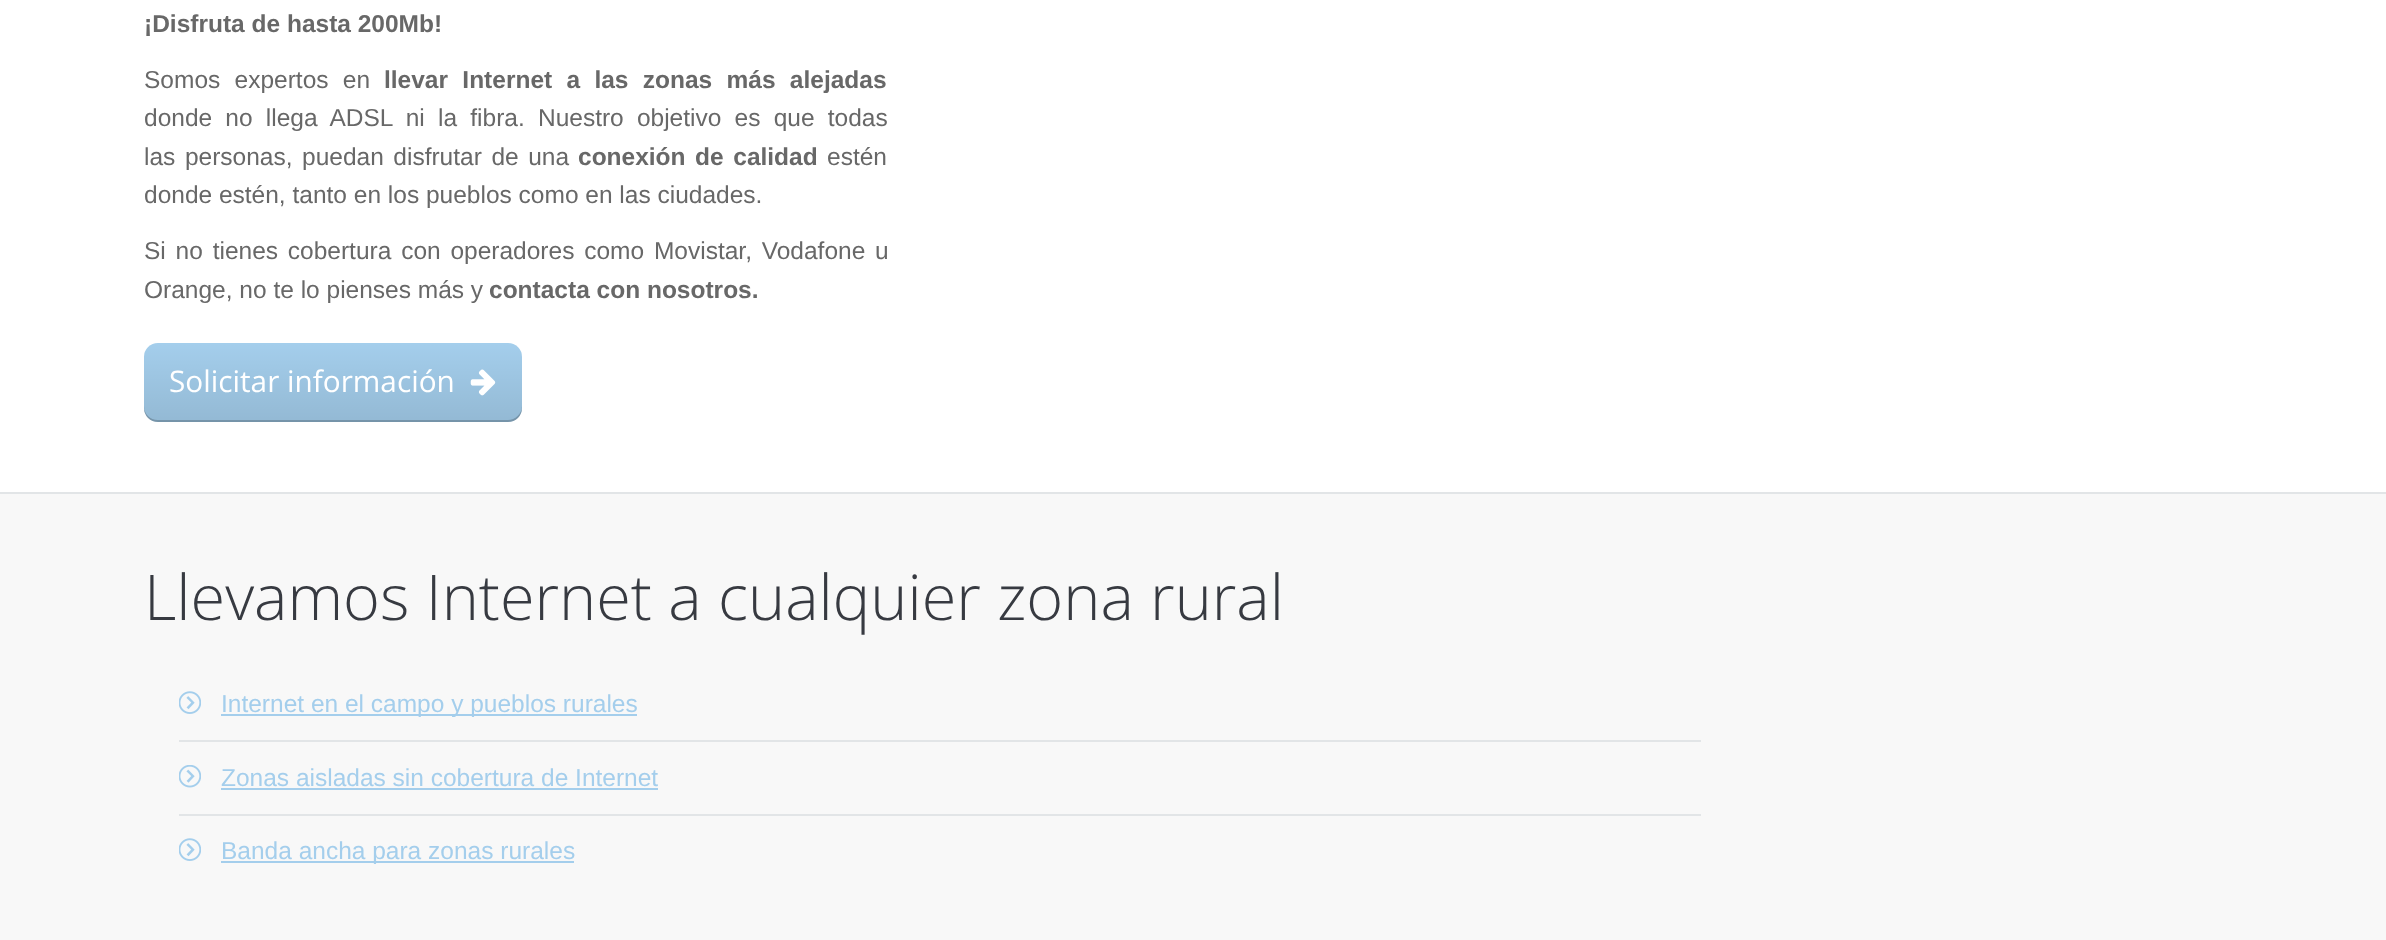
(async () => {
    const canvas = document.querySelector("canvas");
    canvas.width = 2386;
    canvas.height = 940;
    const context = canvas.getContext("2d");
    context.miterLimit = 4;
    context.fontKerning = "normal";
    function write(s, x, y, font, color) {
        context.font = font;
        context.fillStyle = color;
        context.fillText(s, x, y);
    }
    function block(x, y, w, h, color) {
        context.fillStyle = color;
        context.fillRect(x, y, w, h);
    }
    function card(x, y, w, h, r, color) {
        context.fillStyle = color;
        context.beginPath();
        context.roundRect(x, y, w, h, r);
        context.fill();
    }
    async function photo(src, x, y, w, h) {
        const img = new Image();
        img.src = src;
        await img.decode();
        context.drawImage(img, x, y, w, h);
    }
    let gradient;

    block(0, 0, 2386, 940, "rgb(255, 255, 255)");
    write("¡Disfruta de hasta 200Mb!", 144, 32, "bold 24.5px Liberation Sans", "rgb(104, 104, 104)");
    context.wordSpacing = "7.5px";
    write("Somos expertos en", 144, 88, "24.5px Liberation Sans", "rgb(104, 104, 104)");
    write("llevar Internet a las zonas más alejadas", 384, 88, "bold 24.5px Liberation Sans", "rgb(104, 104, 104)");
    context.wordSpacing = "6.4px";
    write("donde no llega ADSL ni la fibra. Nuestro objetivo es que todas", 144, 126, "24.5px Liberation Sans", "rgb(104, 104, 104)");
    context.wordSpacing = "2.75px";
    write("las personas, puedan disfrutar de una", 144, 165, "24.5px Liberation Sans", "rgb(104, 104, 104)");
    write("conexión de calidad", 578, 165, "bold 24.5px Liberation Sans", "rgb(104, 104, 104)");
    context.wordSpacing = "0px";
    write("estén", 827, 165, "24.5px Liberation Sans", "rgb(104, 104, 104)");
    write("donde estén, tanto en los pueblos como en las ciudades.", 144, 203, "24.5px Liberation Sans", "rgb(104, 104, 104)");
    context.wordSpacing = "3px";
    write("Si no tienes cobertura con operadores como Movistar, Vodafone u", 144, 259, "24.5px Liberation Sans", "rgb(104, 104, 104)");
    context.wordSpacing = "0px";
    write("Orange, no te lo pienses más y", 144, 298, "24.5px Liberation Sans", "rgb(104, 104, 104)");
    write("contacta con nosotros.", 489, 298, "bold 24.5px Liberation Sans", "rgb(104, 104, 104)");
    card(144, 343, 378, 79, 14, "rgb(164, 206, 236)");
    gradient = context.createLinearGradient(333, 343, 333, 422);
    gradient.addColorStop(0, "rgba(0, 0, 0, 0)");
    gradient.addColorStop(1, "rgba(0, 0, 0, 0.1)");
    context.fillStyle = gradient;
    context.beginPath();
    context.roundRect(144, 343, 378, 79, 14);
    context.fill();
    context.fillStyle = "rgba(0, 0, 0, 0.2)";
    context.beginPath();
    context.moveTo(144, 406);
    context.lineTo(144, 408);
    context.bezierCurveTo(144, 416, 150, 422, 158, 422);
    context.lineTo(508, 422);
    context.bezierCurveTo(516, 422, 522, 416, 522, 408);
    context.lineTo(522, 406);
    context.bezierCurveTo(522, 414, 515, 420, 508, 420);
    context.lineTo(158, 420);
    context.bezierCurveTo(150, 420, 144, 414, 144, 406);
    context.closePath();
    context.fill();
    write("Solicitar información", 169, 392, "29.75px Open Sans", "rgb(255, 255, 255)");
    await photo("media/1.png", 470, 369, 26, 27);
    context.fillStyle = "rgb(248, 248, 248)";
    context.beginPath();
    context.rect(-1, 493, 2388, 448);
    context.fill();
    context.strokeStyle = "rgb(226, 229, 231)";
    context.lineWidth = 2;
    context.stroke();
    write("Llevamos Internet a cualquier zona rural", 144, 620, "300 63px Open Sans", "rgb(55, 58, 65)");
    await photo("media/2.png", 179, 691, 22, 23);
    block(221, 714, 416, 2, "rgb(164, 206, 236)");
    write("Internet en el campo y pueblos rurales", 221, 712, "24.5px Liberation Sans", "rgb(164, 206, 236)");
    await photo("media/3.png", 179, 765, 22, 23);
    block(179, 740, 1522, 2, "rgb(226, 229, 231)");
    write("Zonas aisladas sin cobertura de Internet", 221, 786, "24.5px Liberation Sans", "rgb(164, 206, 236)");
    block(221, 788, 437, 2, "rgb(164, 206, 236)");
    await photo("media/2.png", 179, 838, 22, 23);
    block(179, 814, 1522, 2, "rgb(226, 229, 231)");
    block(221, 861, 353, 2, "rgb(164, 206, 236)");
    write("Banda ancha para zonas rurales", 221, 859, "24.5px Liberation Sans", "rgb(164, 206, 236)");
})();
